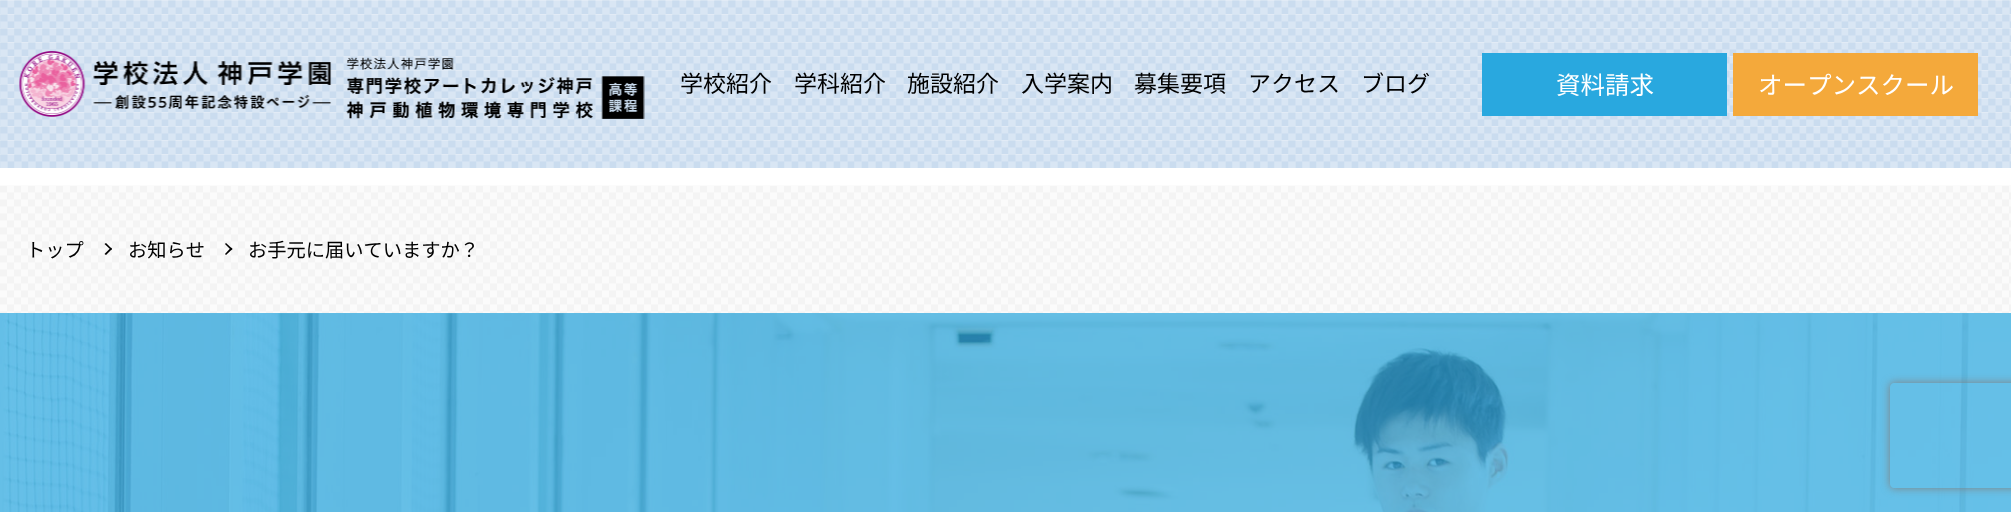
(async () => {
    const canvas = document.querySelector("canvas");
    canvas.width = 2011;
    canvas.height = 512;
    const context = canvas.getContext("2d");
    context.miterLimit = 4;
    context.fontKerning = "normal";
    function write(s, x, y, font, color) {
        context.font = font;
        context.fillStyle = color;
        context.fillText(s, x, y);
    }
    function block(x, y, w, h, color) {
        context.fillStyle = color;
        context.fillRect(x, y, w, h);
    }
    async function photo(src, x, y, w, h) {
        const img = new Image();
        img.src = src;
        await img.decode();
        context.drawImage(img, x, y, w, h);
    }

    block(0, 0, 2011, 512, "rgb(255, 255, 255)");
    await photo("media/1.png", 0, 0, 2011, 168);
    await photo("media/2.png", 19, 51, 313, 66);
    await photo("media/3.png", 346, 57, 299, 62);
    write("学校紹介", 680, 92, "23px Noto Sans JP", "rgb(0, 0, 0)");
    write("学科紹介", 794, 92, "23px Noto Sans JP", "rgb(0, 0, 0)");
    write("施設紹介", 907, 92, "23px Noto Sans JP", "rgb(0, 0, 0)");
    write("入学案内", 1021, 92, "23px Noto Sans JP", "rgb(0, 0, 0)");
    write("募集要項", 1134, 92, "23px Noto Sans JP", "rgb(0, 0, 0)");
    write("アクセス", 1248, 92, "23px Noto Sans JP", "rgb(0, 0, 0)");
    write("ブログ", 1361, 92, "23px Noto Sans JP", "rgb(0, 0, 0)");
    block(1482, 53, 245, 63, "rgb(41, 168, 223)");
    write("資料請求", 1556, 94, "24.5px Noto Sans JP", "rgb(255, 255, 255)");
    block(1733, 53, 245, 63, "rgb(244, 169, 59)");
    write("オープンスクール", 1758, 94, "24.5px Noto Sans JP", "rgb(255, 255, 255)");
    await photo("media/4.png", 0, 185, 2011, 129);
    write("トップ", 26, 257, "19.25px Noto Sans JP", "rgb(0, 0, 0)");
    context.beginPath();
    context.moveTo(106, 243);
    context.lineTo(112, 249);
    context.lineTo(111, 250);
    context.lineTo(104.5, 244);
    context.closePath();
    context.fill();
    context.beginPath();
    context.moveTo(111, 247.5);
    context.lineTo(112, 249);
    context.lineTo(106, 255);
    context.lineTo(104.5, 254);
    context.closePath();
    context.fill();
    write("お知らせ", 128, 257, "19.25px Noto Sans JP", "rgb(0, 0, 0)");
    context.beginPath();
    context.moveTo(226, 243);
    context.lineTo(232.5, 249);
    context.lineTo(231, 250);
    context.lineTo(225, 244);
    context.closePath();
    context.fill();
    context.beginPath();
    context.moveTo(231, 247.5);
    context.lineTo(232.5, 249);
    context.lineTo(226, 255);
    context.lineTo(225, 254);
    context.closePath();
    context.fill();
    write("お手元に届いていますか？", 248, 257, "19.25px Noto Sans JP", "rgb(0, 0, 0)");
    await photo("media/5.png", 0, 313, 2011, 199);
    block(0, 313, 2011, 199, "rgba(41, 168, 223, 0.7)");
    context.save();
    context.beginPath();
    context.moveTo(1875, 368);
    context.lineTo(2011, 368);
    context.lineTo(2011, 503);
    context.lineTo(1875, 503);
    context.closePath();
    context.moveTo(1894, 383);
    context.lineTo(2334, 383);
    context.bezierCurveTo(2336, 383, 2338, 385, 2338, 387);
    context.lineTo(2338, 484);
    context.bezierCurveTo(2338, 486, 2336, 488, 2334, 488);
    context.lineTo(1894, 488);
    context.bezierCurveTo(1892, 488, 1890, 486, 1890, 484);
    context.lineTo(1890, 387);
    context.bezierCurveTo(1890, 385, 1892, 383, 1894, 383);
    context.closePath();
    context.clip("evenodd");
    context.fillStyle = "rgb(128, 128, 128)";
    context.filter = "blur(4.5px)";
    context.beginPath();
    context.roundRect(1890, 383, 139, 105, 4);
    context.fill();
    context.filter = "none";
    context.restore();
})();
